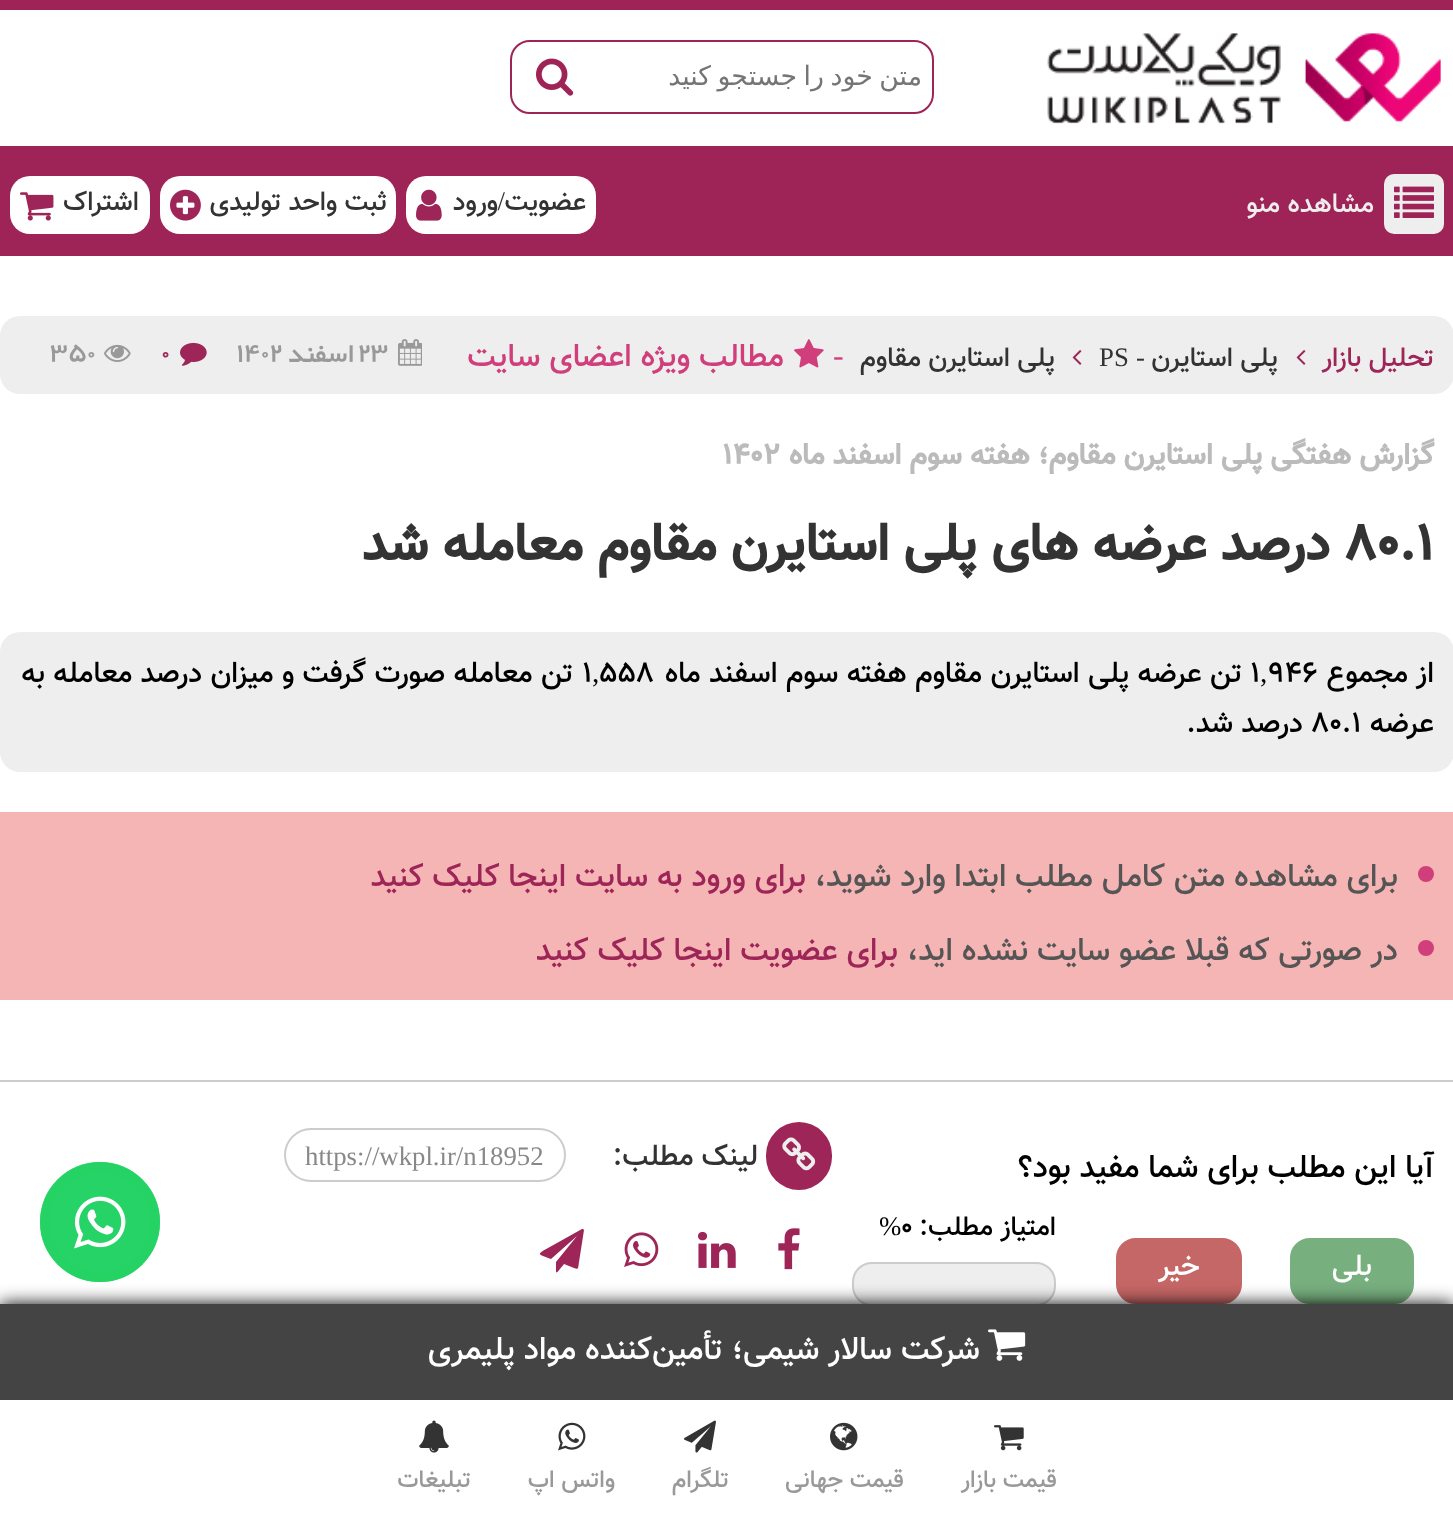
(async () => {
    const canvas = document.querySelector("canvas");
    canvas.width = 1453;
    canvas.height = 1522;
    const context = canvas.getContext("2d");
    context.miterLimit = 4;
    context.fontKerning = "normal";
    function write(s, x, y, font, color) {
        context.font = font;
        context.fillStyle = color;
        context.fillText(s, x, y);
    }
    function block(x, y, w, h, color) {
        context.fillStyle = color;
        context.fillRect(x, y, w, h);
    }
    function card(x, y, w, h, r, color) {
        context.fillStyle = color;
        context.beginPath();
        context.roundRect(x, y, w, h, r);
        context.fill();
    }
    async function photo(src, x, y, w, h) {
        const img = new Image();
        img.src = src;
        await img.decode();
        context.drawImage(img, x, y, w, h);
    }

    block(0, 0, 1453, 1522, "rgb(255, 255, 255)");
    block(0, 0, 1453, 10, "rgb(158, 36, 87)");
    await photo("media/1.png", 1047, 33, 394, 91);
    context.beginPath();
    context.roundRect(511, 41, 422, 72, 19);
    context.strokeStyle = "rgb(158, 36, 87)";
    context.lineWidth = 2;
    context.stroke();
    context.save();
    context.beginPath();
    context.rect(522, 62, 400, 32);
    context.clip();
    context.wordSpacing = "-2px";
    context.direction = "rtl";
    write("متن خود را جستجو کنید", 922, 85, "26.75px DejaVu Sans", "rgb(117, 117, 117)");
    context.restore();
    await photo("media/2.png", 536, 58, 38, 38);
    block(0, 146, 1453, 110, "rgb(158, 36, 87)");
    card(1384, 174, 60, 60, 10, "rgb(238, 238, 238)");
    await photo("media/3.png", 1394, 186, 40, 32);
    context.direction = "rtl";
    write("مشاهده منو", 1374, 212, "500 26.75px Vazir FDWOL", "rgb(238, 238, 238)");
    card(406, 176, 190, 58, 20, "rgb(255, 255, 255)");
    write("عضویت", 586, 210, "500 26.75px Vazir FDWOL", "rgb(51, 51, 51)");
    write("ورود", 498, 210, "500 26.75px Vazir FDWOL", "rgb(51, 51, 51)");
    write("/", 505, 210, "26.75px Liberation Serif", "rgb(51, 51, 51)");
    await photo("media/4.png", 416, 189, 26, 32);
    card(160, 176, 236, 58, 20, "rgb(255, 255, 255)");
    write("ثبت واحد تولیدی", 387, 210, "500 26.75px Vazir FDWOL", "rgb(51, 51, 51)");
    await photo("media/5.png", 170, 189, 31, 32);
    card(10, 176, 140, 58, 20, "rgb(255, 255, 255)");
    write("اشتراک", 139, 210, "500 26.75px Vazir FDWOL", "rgb(51, 51, 51)");
    await photo("media/6.png", 20, 192, 34, 29);
    card(0, 316, 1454, 78, 20, "rgb(238, 238, 238)");
    write("تحلیل بازار", 1434, 366, "500 26.75px Vazir FDWOL", "rgb(158, 37, 88)");
    await photo("media/7.png", 1296, 350, 10, 15);
    write("پلی استایرن", 1278, 366, "500 26.75px Vazir FDWOL", "rgb(51, 51, 51)");
    write("-", 1145, 366, "26.75px Liberation Serif", "rgb(51, 51, 51)");
    context.direction = "ltr";
    write("PS", 1099, 366, "26.75px Liberation Serif", "rgb(51, 51, 51)");
    await photo("media/7.png", 1072, 350, 10, 15);
    context.direction = "rtl";
    write("پلی استایرن مقاوم", 1055, 366, "500 26.75px Vazir FDWOL", "rgb(51, 51, 51)");
    context.direction = "ltr";
    write("-", 833, 366, "32px Liberation Serif", "rgb(208, 62, 123)");
    await photo("media/8.png", 794, 339, 30, 29);
    context.direction = "rtl";
    write("مطالب ویژه اعضای سایت", 784, 366, "500 32px Vazir FDWOL", "rgb(208, 62, 123)");
    await photo("media/9.png", 398, 339, 24, 27);
    context.direction = "ltr";
    write("۲۳", 357, 362, "bold 26.75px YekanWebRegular", "rgb(153, 153, 153)");
    context.direction = "rtl";
    write("اسفند", 353, 362, "bold 26.75px YekanWebRegular", "rgb(153, 153, 153)");
    context.direction = "ltr";
    write("۱۴۰۲", 236, 362, "bold 26.75px YekanWebRegular", "rgb(153, 153, 153)");
    await photo("media/10.png", 180, 342, 27, 24);
    write("0", 161, 362, "bold 26.75px YekanWebRegular", "rgb(158, 37, 88)");
    await photo("media/11.png", 104, 344, 27, 18);
    write("350", 50, 362, "bold 26.75px YekanWebRegular", "rgb(153, 153, 153)");
    context.direction = "rtl";
    write("گزارش هفتگی پلی استایرن مقاوم؛ هفته سوم اسفند ماه", 1434, 464, "bold 29.3px Vazir FDWOL", "rgb(187, 187, 187)");
    context.direction = "ltr";
    write("1402", 722, 464, "bold 29.3px Vazir FDWOL", "rgb(187, 187, 187)");
    write("80.1", 1344, 560, "bold 52px Vazir FDWOL", "rgb(51, 51, 51)");
    context.direction = "rtl";
    write("درصد عرضه های پلی استایرن مقاوم معامله شد", 1330, 560, "bold 52px Vazir FDWOL", "rgb(51, 51, 51)");
    card(0, 632, 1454, 140, 20, "rgb(238, 238, 238)");
    write("از مجموع", 1434, 682, "500 29.3px Vazir FDWOL", "rgb(0, 0, 0)");
    context.direction = "ltr";
    write("946", 1268, 682, "500 29.3px Vazir FDWOL", "rgb(0, 0, 0)");
    write(",", 1260, 682, "29.3px Liberation Serif", "rgb(0, 0, 0)");
    write("1", 1250, 682, "500 29.3px Vazir FDWOL", "rgb(0, 0, 0)");
    context.wordSpacing = "0.25px";
    context.direction = "rtl";
    write("تن عرضه پلی استایرن مقاوم هفته سوم اسفند ماه", 1242, 682, "500 29.3px Vazir FDWOL", "rgb(0, 0, 0)");
    context.wordSpacing = "0px";
    context.direction = "ltr";
    write("558", 599, 682, "500 29.3px Vazir FDWOL", "rgb(0, 0, 0)");
    write(",", 592, 682, "29.3px Liberation Serif", "rgb(0, 0, 0)");
    write("1", 582, 682, "500 29.3px Vazir FDWOL", "rgb(0, 0, 0)");
    context.wordSpacing = "0.25px";
    context.direction = "rtl";
    write("تن معامله صورت گرفت و میزان درصد معامله به", 573, 682, "500 29.3px Vazir FDWOL", "rgb(0, 0, 0)");
    context.wordSpacing = "0px";
    write("عرضه", 1434, 732, "500 29.3px Vazir FDWOL", "rgb(0, 0, 0)");
    context.direction = "ltr";
    write("80.1", 1311, 732, "500 29.3px Vazir FDWOL", "rgb(0, 0, 0)");
    context.direction = "rtl";
    write("درصد شد.", 1303, 732, "500 29.3px Vazir FDWOL", "rgb(0, 0, 0)");
    block(0, 1080, 1453, 2, "rgb(204, 204, 204)");
    block(0, 812, 1453, 188, "rgb(245, 181, 181)");
    context.fillStyle = "rgb(208, 62, 123)";
    context.beginPath();
    context.arc(1426, 874, 8, 0, Math.PI * 2);
    context.fill();
    write("برای مشاهده متن کامل مطلب ابتدا وارد شوید،", 1398, 886, "500 32px Vazir FDWOL", "rgb(85, 85, 85)");
    write("برای ورود به سایت اینجا کلیک کنید", 806, 886, "500 32px Vazir FDWOL", "rgb(158, 37, 88)");
    context.fillStyle = "rgb(208, 62, 123)";
    context.beginPath();
    context.arc(1426, 948, 8, 0, Math.PI * 2);
    context.fill();
    write("در صورتی که قبلا عضو سایت نشده اید،", 1398, 960, "500 32px Vazir FDWOL", "rgb(85, 85, 85)");
    write("برای عضویت اینجا کلیک کنید", 898, 960, "500 32px Vazir FDWOL", "rgb(158, 37, 88)");
    write("آیا این مطلب برای شما مفید بود؟", 1434, 1177, "500 32px Vazir FDWOL", "rgb(0, 0, 0)");
    write("امتیاز مطلب:", 1056, 1235, "500 26.75px Vazir FDWOL", "rgb(0, 0, 0)");
    context.direction = "ltr";
    write("0", 901, 1235, "500 26.75px Vazir FDWOL", "rgb(0, 0, 0)");
    write("%", 879, 1235, "26.75px Liberation Serif", "rgb(0, 0, 0)");
    context.fillStyle = "rgb(238, 238, 238)";
    context.beginPath();
    context.roundRect(853, 1263, 202, 42, 19);
    context.fill();
    context.strokeStyle = "rgb(204, 204, 204)";
    context.stroke();
    context.fillStyle = "rgb(120, 175, 127)";
    context.beginPath();
    context.roundRect(1291, 1239, 122, 64, 19);
    context.fill();
    context.strokeStyle = "rgb(120, 175, 127)";
    context.stroke();
    context.direction = "rtl";
    write("بلی", 1372, 1275, "500 29.3px Vazir FDWOL", "rgb(255, 255, 255)");
    context.fillStyle = "rgb(197, 103, 102)";
    context.beginPath();
    context.roundRect(1117, 1239, 124, 64, 19);
    context.fill();
    context.strokeStyle = "rgb(197, 103, 102)";
    context.stroke();
    write("خیر", 1200, 1275, "500 29.3px Vazir FDWOL", "rgb(255, 255, 255)");
    card(766, 1122, 66, 68, 33, "rgb(158, 37, 88)");
    await photo("media/12.png", 782, 1137, 34, 34);
    write("لینک مطلب:", 758, 1165, "500 29.3px Vazir FDWOL", "rgb(51, 51, 51)");
    context.beginPath();
    context.roundRect(285, 1129, 280, 52, 26);
    context.strokeStyle = "rgb(204, 204, 204)";
    context.stroke();
    context.direction = "ltr";
    write("https://wkpl.ir/n18952", 305, 1165, "26.75px Liberation Serif", "rgb(136, 136, 136)");
    await photo("media/13.png", 778, 1228, 22, 42);
    await photo("media/14.png", 698, 1231, 38, 37);
    await photo("media/15.png", 624, 1232, 35, 35);
    context.fillStyle = "rgb(158, 37, 88)";
    context.beginPath();
    context.moveTo(583, 1229);
    context.lineTo(584, 1230);
    context.lineTo(579, 1262);
    context.bezierCurveTo(578, 1268, 579, 1270, 574, 1268);
    context.lineTo(564, 1264);
    context.bezierCurveTo(555, 1275, 556, 1276, 556, 1262);
    context.lineTo(577, 1236);
    context.lineTo(551, 1259);
    context.bezierCurveTo(539, 1254, 535, 1255, 548, 1248);
    context.lineTo(582, 1229);
    context.closePath();
    context.fill();
    context.fillStyle = "rgb(37, 211, 102)";
    context.beginPath();
    context.arc(100, 1222, 60, 0, Math.PI * 2);
    context.fill();
    await photo("media/16.png", 74, 1196, 52, 53);
    context.beginPath();
    context.arc(100, 1222, 55, 0, Math.PI * 2);
    context.strokeStyle = "rgba(37, 211, 102, 0.75)";
    context.lineWidth = 10;
    context.stroke();
    context.fillStyle = "rgb(0, 0, 0)";
    context.filter = "blur(9px)";
    context.beginPath();
    context.rect(0, 1304, 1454, 218);
    context.fill();
    context.filter = "none";
    block(0, 1400, 1453, 122, "rgb(255, 255, 255)");
    block(0, 1304, 1453, 96, "rgb(68, 68, 68)");
    await photo("media/17.png", 988, 1329, 38, 32);
    context.direction = "rtl";
    write("شرکت سالار شیمی؛ تأمین‌کننده مواد پلیمری", 980, 1359, "500 32px Vazir FDWOL", "rgb(255, 255, 255)");
    await photo("media/18.png", 994, 1425, 30, 26);
    write("قیمت بازار", 1057, 1487, "500 24px Vazir FDWOL", "rgb(153, 153, 153)");
    await photo("media/19.png", 830, 1422, 28, 29);
    write("قیمت جهانی", 904, 1487, "500 24px Vazir FDWOL", "rgb(153, 153, 153)");
    await photo("media/20.png", 684, 1420, 32, 33);
    write("تلگرام", 729, 1487, "500 24px Vazir FDWOL", "rgb(153, 153, 153)");
    await photo("media/21.png", 558, 1422, 28, 29);
    write("واتس اپ", 615, 1487, "500 24px Vazir FDWOL", "rgb(153, 153, 153)");
    await photo("media/22.png", 419, 1420, 30, 33);
    write("تبلیغات", 471, 1487, "500 24px Vazir FDWOL", "rgb(153, 153, 153)");
})();
